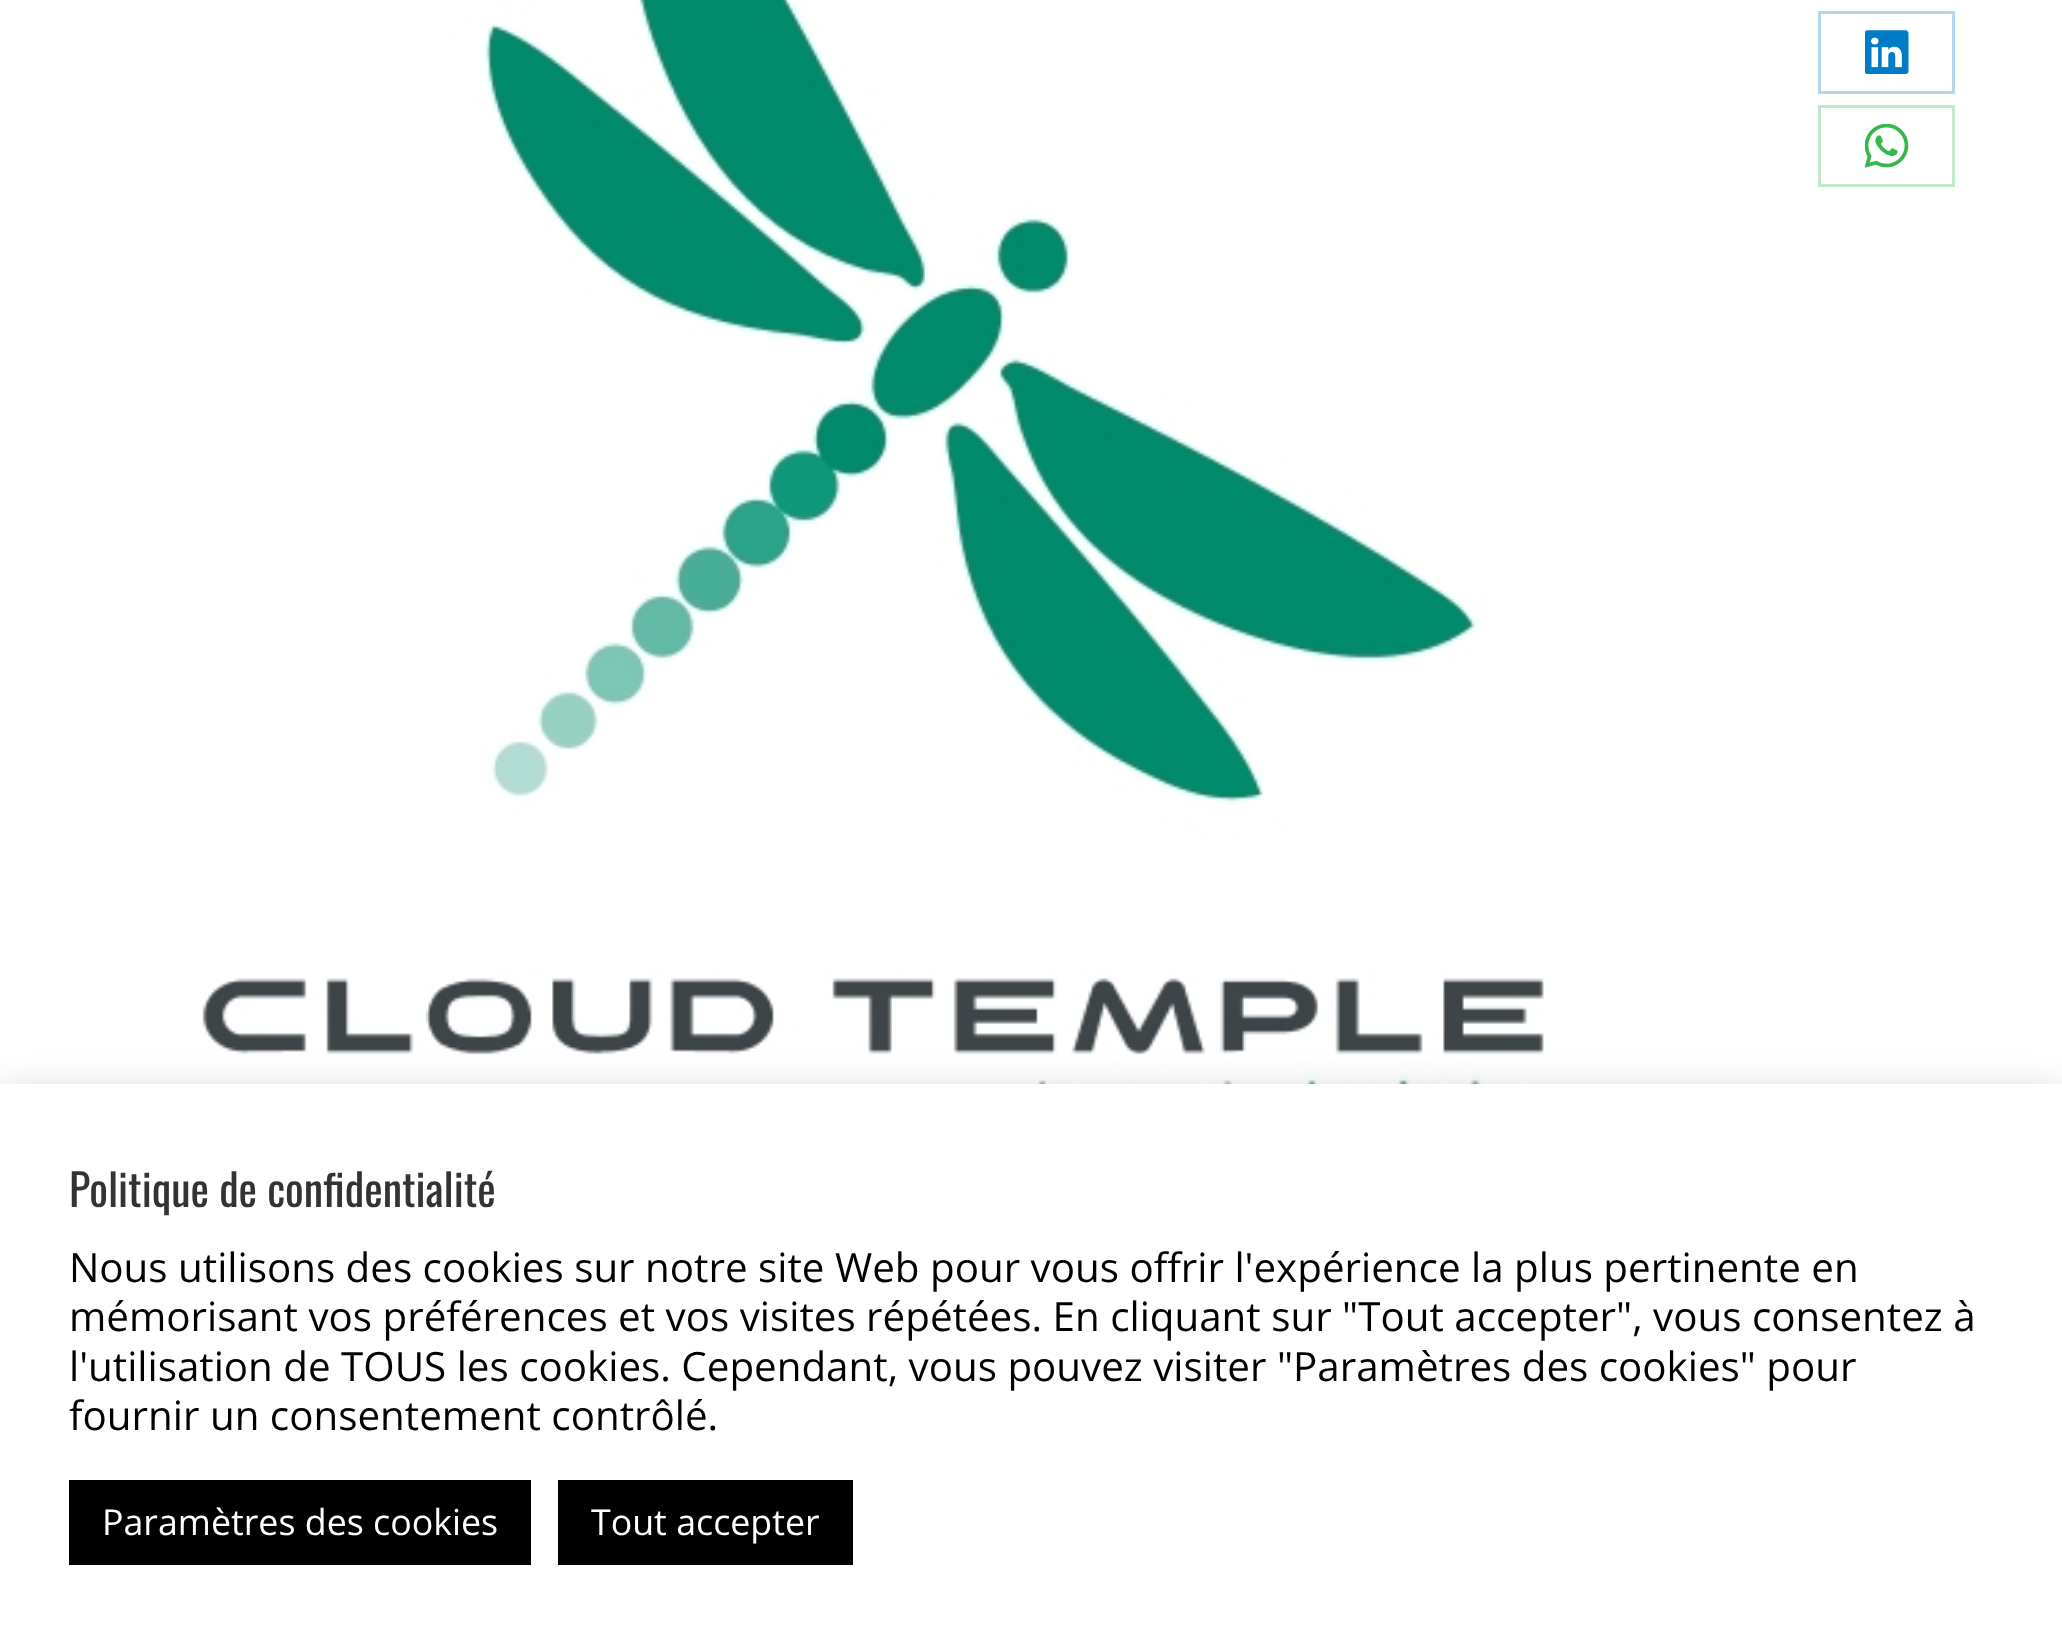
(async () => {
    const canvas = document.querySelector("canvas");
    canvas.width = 2062;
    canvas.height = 1645;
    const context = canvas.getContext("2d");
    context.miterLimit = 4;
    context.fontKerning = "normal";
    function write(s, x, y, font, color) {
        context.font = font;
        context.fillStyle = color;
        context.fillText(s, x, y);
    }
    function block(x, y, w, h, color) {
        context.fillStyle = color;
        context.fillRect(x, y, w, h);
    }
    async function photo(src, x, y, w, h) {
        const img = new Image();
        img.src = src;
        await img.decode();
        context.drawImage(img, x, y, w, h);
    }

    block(0, 0, 2062, 1645, "rgb(255, 255, 255)");
    await photo("media/1.png", 202, 0, 1345, 1084);
    context.strokeStyle = "rgb(179, 215, 238)";
    context.lineWidth = 3;
    context.strokeRect(1819.5, 12.5, 134, 80);
    await photo("media/2.png", 1865, 30, 44, 44);
    context.strokeStyle = "rgb(195, 233, 202)";
    context.strokeRect(1819.5, 106.5, 134, 79);
    await photo("media/3.png", 1865, 124, 44, 44);
    context.fillStyle = "rgba(172, 171, 171, 0.3)";
    context.filter = "blur(14px)";
    context.beginPath();
    context.rect(0, 1081, 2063, 564);
    context.fill();
    context.filter = "none";
    block(0, 1084, 2062, 561, "rgb(255, 255, 255)");
    write("Politique de confidentialité", 69, 1207, "44px Oswald", "rgb(51, 51, 51)");
    write("Nous utilisons des cookies sur notre site Web pour vous offrir l'expérience la plus pertinente en", 69, 1282, "40.35px Open Sans", "rgb(0, 0, 0)");
    write("mémorisant vos préférences et vos visites répétées. En cliquant sur \"Tout accepter\", vous consentez à", 69, 1331, "40.35px Open Sans", "rgb(0, 0, 0)");
    write("l'utilisation de TOUS les cookies. Cependant, vous pouvez visiter \"Paramètres des cookies\" pour", 69, 1381, "40.35px Open Sans", "rgb(0, 0, 0)");
    write("fournir un consentement contrôlé.", 69, 1430, "40.35px Open Sans", "rgb(0, 0, 0)");
    block(69, 1480, 462, 85, "rgb(0, 0, 0)");
    write("Paramètres des cookies", 102, 1535, "35.75px Open Sans", "rgb(255, 255, 255)");
    block(558, 1480, 295, 85, "rgb(0, 0, 0)");
    write("Tout accepter", 591, 1535, "35.75px Open Sans", "rgb(255, 255, 255)");
})();
